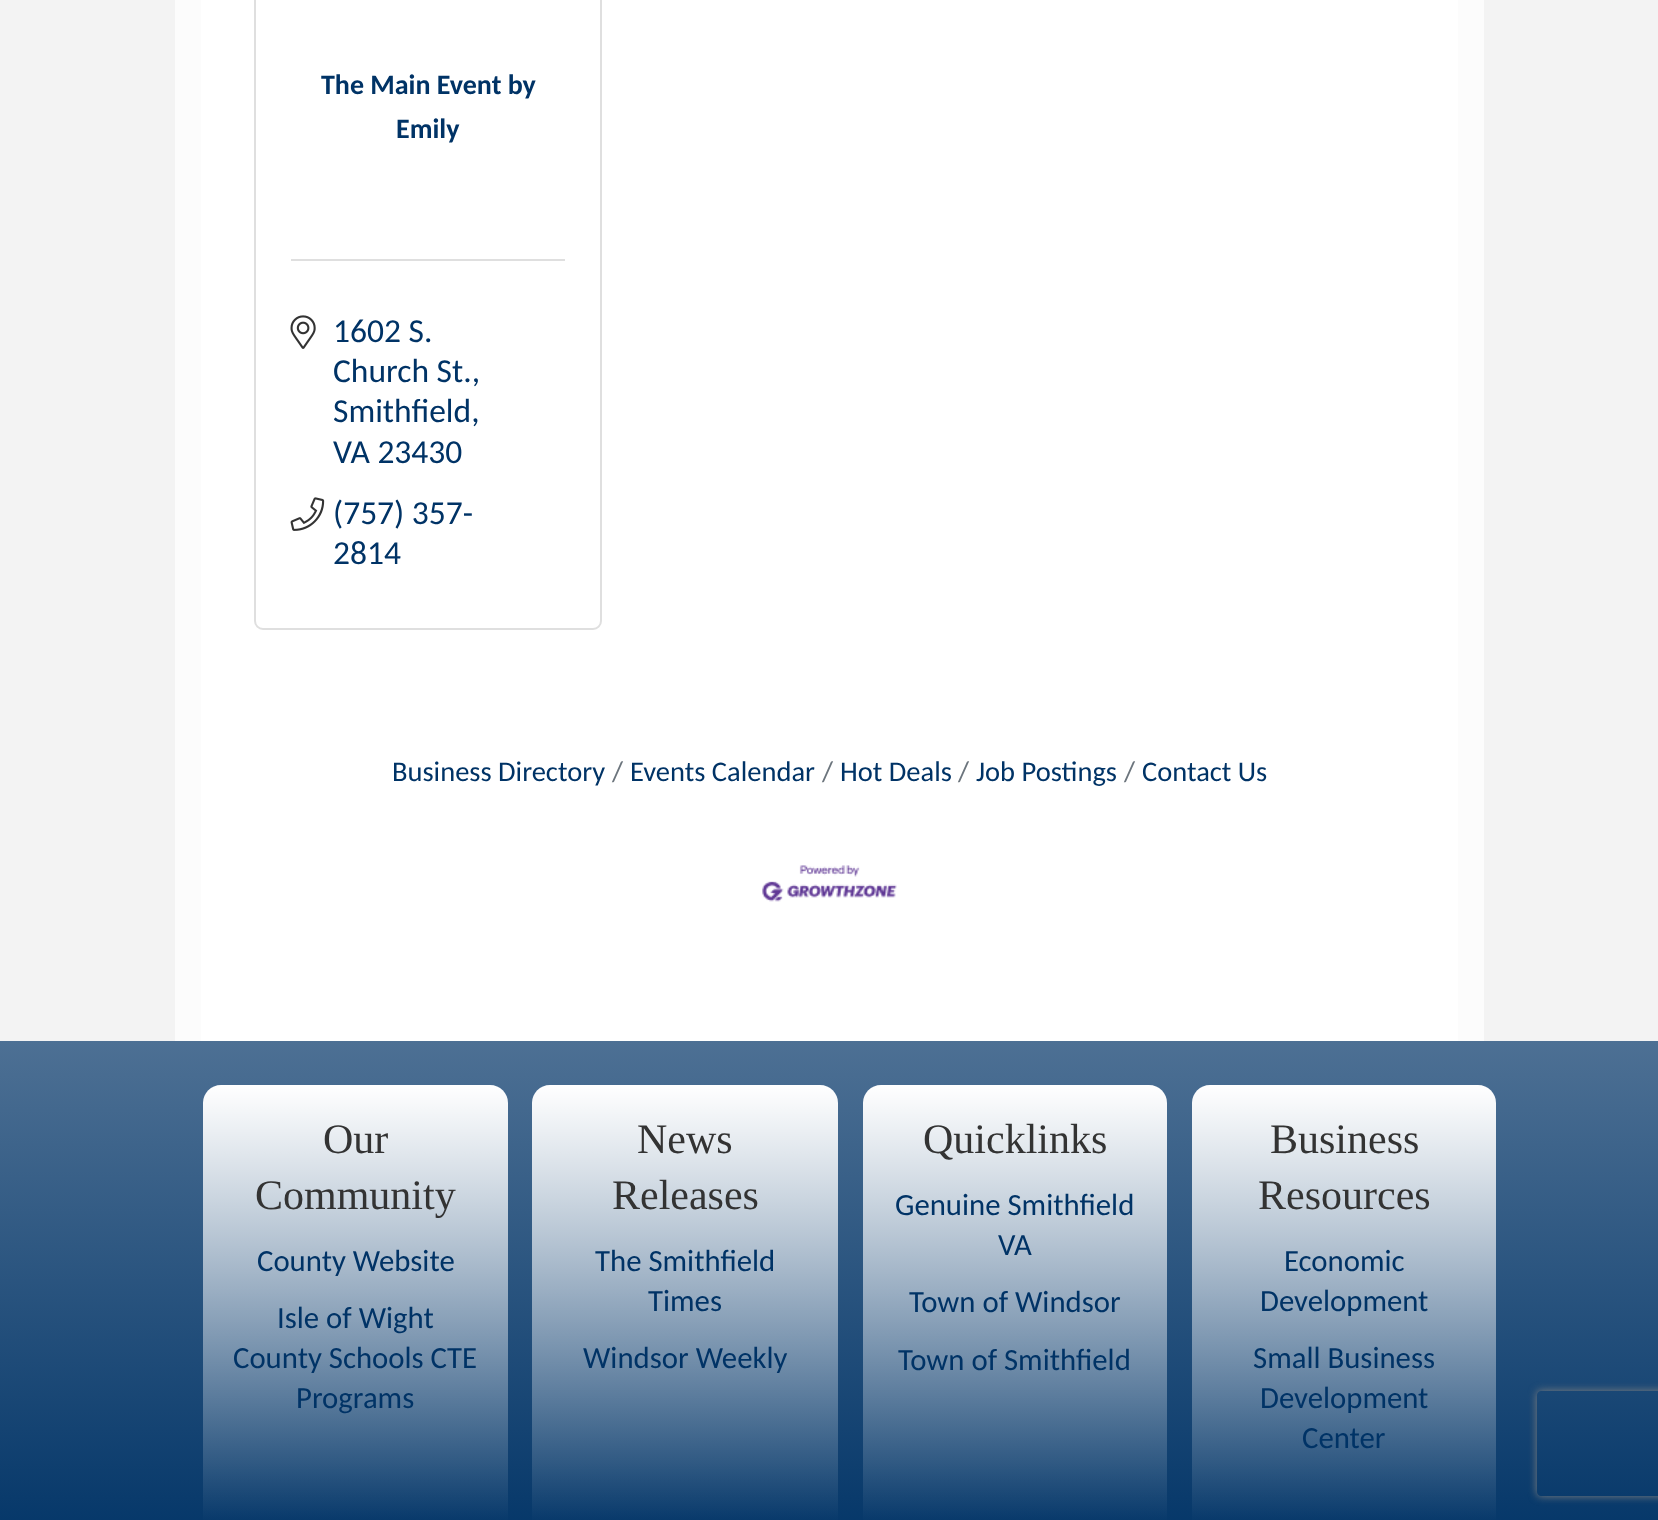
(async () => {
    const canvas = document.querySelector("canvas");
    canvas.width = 1658;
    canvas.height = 1520;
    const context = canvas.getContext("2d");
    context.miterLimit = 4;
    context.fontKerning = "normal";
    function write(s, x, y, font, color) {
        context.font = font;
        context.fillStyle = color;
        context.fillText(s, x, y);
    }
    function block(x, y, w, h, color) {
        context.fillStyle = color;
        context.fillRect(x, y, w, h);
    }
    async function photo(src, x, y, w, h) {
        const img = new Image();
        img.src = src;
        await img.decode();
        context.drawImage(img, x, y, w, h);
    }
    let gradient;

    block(0, 0, 1658, 1520, "rgb(243, 243, 243)");
    block(175, 0, 1309, 1041, "rgb(252, 252, 252)");
    block(201, 0, 1257, 1041, "rgb(255, 255, 255)");
    context.beginPath();
    context.roundRect(255, -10, 346, 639, 8);
    context.strokeStyle = "rgb(223, 223, 223)";
    context.lineWidth = 2;
    context.stroke();
    write("The Main Event by", 321, 94, "bold 28px Carlito", "rgb(0, 51, 102)");
    write("Emily", 396, 138, "bold 28px Carlito", "rgb(0, 51, 102)");
    block(291, 259, 274, 2, "rgb(223, 223, 223)");
    await photo("media/1.png", 290, 315, 26, 34);
    write("1602 S.", 333, 342, "33.5px Carlito", "rgb(0, 51, 102)");
    write("Church St.,", 333, 382, "33.5px Carlito", "rgb(0, 51, 102)");
    write("Smithfield,", 333, 422, "33.5px Carlito", "rgb(0, 51, 102)");
    write("VA 23430", 333, 463, "33.5px Carlito", "rgb(0, 51, 102)");
    await photo("media/2.png", 290, 497, 35, 34);
    write("(757) 357-", 333, 524, "33.5px Carlito", "rgb(0, 51, 102)");
    write("2814", 333, 564, "33.5px Carlito", "rgb(0, 51, 102)");
    write("Business Directory", 392, 781, "28.5px Carlito", "rgb(0, 51, 102)");
    write("/", 612, 781, "28.5px Carlito", "rgb(108, 117, 125)");
    write("Events Calendar", 630, 781, "28.5px Carlito", "rgb(0, 51, 102)");
    write("/", 822, 781, "28.5px Carlito", "rgb(108, 117, 125)");
    write("Hot Deals", 840, 781, "28.5px Carlito", "rgb(0, 51, 102)");
    write("/", 958, 781, "28.5px Carlito", "rgb(108, 117, 125)");
    write("Job Postings", 976, 781, "28.5px Carlito", "rgb(0, 51, 102)");
    write("/", 1124, 781, "28.5px Carlito", "rgb(108, 117, 125)");
    write("Contact Us", 1142, 781, "28.5px Carlito", "rgb(0, 51, 102)");
    await photo("media/3.png", 762, 865, 135, 37);
    gradient = context.createLinearGradient(830, 1041, 830, 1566);
    gradient.addColorStop(0, "rgb(77, 112, 148)");
    gradient.addColorStop(1, "rgb(0, 51, 102)");
    context.fillStyle = gradient;
    context.fillRect(0, 1041, 1658, 479);
    gradient = context.createLinearGradient(355, 1085, 355, 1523);
    gradient.addColorStop(0, "rgb(255, 255, 255)");
    gradient.addColorStop(1, "rgba(255, 255, 255, 0)");
    context.fillStyle = gradient;
    context.beginPath();
    context.moveTo(221, 1085);
    context.lineTo(490, 1085);
    context.bezierCurveTo(500, 1085, 508, 1093, 508, 1103);
    context.lineTo(508, 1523);
    context.lineTo(203, 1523);
    context.lineTo(203, 1103);
    context.bezierCurveTo(203, 1093, 211, 1085, 221, 1085);
    context.closePath();
    context.fill();
    write("Our", 323, 1153, "42px Liberation Serif", "rgb(51, 51, 51)");
    write("Community", 255, 1209, "42px Liberation Serif", "rgb(51, 51, 51)");
    write("County Website", 257, 1271, "30.75px Carlito", "rgb(0, 51, 102)");
    write("Isle of Wight", 277, 1328, "30.75px Carlito", "rgb(0, 51, 102)");
    write("County Schools CTE", 233, 1368, "30.75px Carlito", "rgb(0, 51, 102)");
    write("Programs", 296, 1408, "30.75px Carlito", "rgb(0, 51, 102)");
    gradient = context.createLinearGradient(685, 1085, 685, 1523);
    gradient.addColorStop(0, "rgb(255, 255, 255)");
    gradient.addColorStop(1, "rgba(255, 255, 255, 0)");
    context.fillStyle = gradient;
    context.beginPath();
    context.moveTo(550, 1085);
    context.lineTo(820, 1085);
    context.bezierCurveTo(830, 1085, 838, 1093, 838, 1103);
    context.lineTo(838, 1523);
    context.lineTo(532, 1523);
    context.lineTo(532, 1103);
    context.bezierCurveTo(532, 1093, 540, 1085, 550, 1085);
    context.closePath();
    context.fill();
    write("News", 637, 1153, "42px Liberation Serif", "rgb(51, 51, 51)");
    write("Releases", 612, 1209, "42px Liberation Serif", "rgb(51, 51, 51)");
    write("The Smithfield", 595, 1271, "30.75px Carlito", "rgb(0, 51, 102)");
    write("Times", 648, 1311, "30.75px Carlito", "rgb(0, 51, 102)");
    write("Windsor Weekly", 583, 1368, "30.75px Carlito", "rgb(0, 51, 102)");
    gradient = context.createLinearGradient(1015, 1085, 1015, 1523);
    gradient.addColorStop(0, "rgb(255, 255, 255)");
    gradient.addColorStop(1, "rgba(255, 255, 255, 0)");
    context.fillStyle = gradient;
    context.beginPath();
    context.moveTo(881, 1085);
    context.lineTo(1149, 1085);
    context.bezierCurveTo(1159, 1085, 1167, 1093, 1167, 1103);
    context.lineTo(1167, 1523);
    context.lineTo(863, 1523);
    context.lineTo(863, 1103);
    context.bezierCurveTo(863, 1093, 871, 1085, 881, 1085);
    context.closePath();
    context.fill();
    write("Quicklinks", 923, 1153, "42px Liberation Serif", "rgb(51, 51, 51)");
    write("Genuine Smithfield", 895, 1215, "30.75px Carlito", "rgb(0, 51, 102)");
    write("VA", 998, 1255, "30.75px Carlito", "rgb(0, 51, 102)");
    write("Town of Windsor", 909, 1312, "30.75px Carlito", "rgb(0, 51, 102)");
    write("Town of Smithfield", 898, 1370, "30.75px Carlito", "rgb(0, 51, 102)");
    gradient = context.createLinearGradient(1344, 1085, 1344, 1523);
    gradient.addColorStop(0, "rgb(255, 255, 255)");
    gradient.addColorStop(1, "rgba(255, 255, 255, 0)");
    context.fillStyle = gradient;
    context.beginPath();
    context.moveTo(1210, 1085);
    context.lineTo(1478, 1085);
    context.bezierCurveTo(1488, 1085, 1496, 1093, 1496, 1103);
    context.lineTo(1496, 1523);
    context.lineTo(1192, 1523);
    context.lineTo(1192, 1103);
    context.bezierCurveTo(1192, 1093, 1200, 1085, 1210, 1085);
    context.closePath();
    context.fill();
    write("Business", 1270, 1153, "42px Liberation Serif", "rgb(51, 51, 51)");
    write("Resources", 1258, 1209, "42px Liberation Serif", "rgb(51, 51, 51)");
    write("Economic", 1284, 1271, "30.75px Carlito", "rgb(0, 51, 102)");
    write("Development", 1260, 1311, "30.75px Carlito", "rgb(0, 51, 102)");
    write("Small Business", 1253, 1368, "30.75px Carlito", "rgb(0, 51, 102)");
    write("Development", 1260, 1408, "30.75px Carlito", "rgb(0, 51, 102)");
    write("Center", 1302, 1448, "30.75px Carlito", "rgb(0, 51, 102)");
    context.save();
    context.beginPath();
    context.moveTo(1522, 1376);
    context.lineTo(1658, 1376);
    context.lineTo(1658, 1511);
    context.lineTo(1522, 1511);
    context.closePath();
    context.moveTo(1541, 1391);
    context.lineTo(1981, 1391);
    context.bezierCurveTo(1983, 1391, 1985, 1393, 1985, 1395);
    context.lineTo(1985, 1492);
    context.bezierCurveTo(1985, 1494, 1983, 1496, 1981, 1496);
    context.lineTo(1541, 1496);
    context.bezierCurveTo(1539, 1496, 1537, 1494, 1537, 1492);
    context.lineTo(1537, 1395);
    context.bezierCurveTo(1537, 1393, 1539, 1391, 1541, 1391);
    context.closePath();
    context.clip("evenodd");
    context.fillStyle = "rgb(128, 128, 128)";
    context.filter = "blur(4.5px)";
    context.beginPath();
    context.roundRect(1537, 1391, 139, 105, 4);
    context.fill();
    context.filter = "none";
    context.restore();
})();
